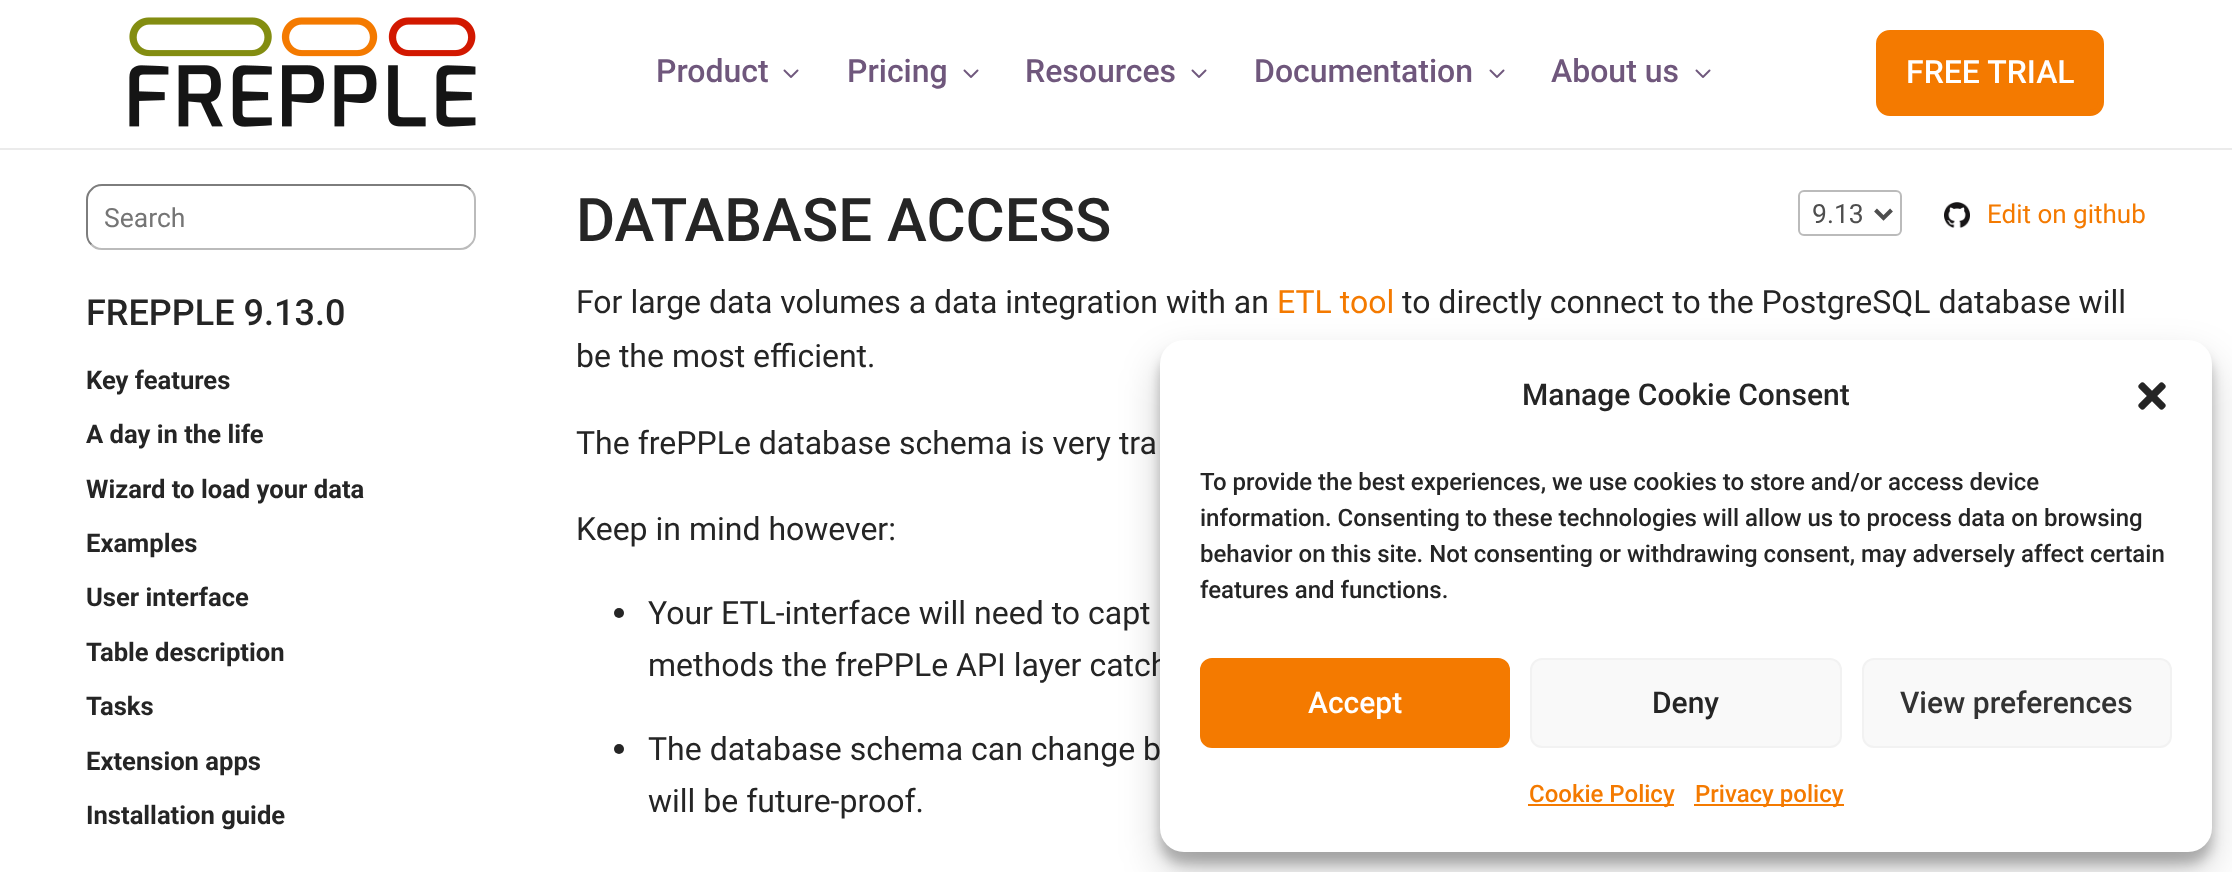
(async () => {
    const canvas = document.querySelector("canvas");
    canvas.width = 2232;
    canvas.height = 872;
    const context = canvas.getContext("2d");
    context.miterLimit = 4;
    context.fontKerning = "normal";
    function write(s, x, y, font, color) {
        context.font = font;
        context.fillStyle = color;
        context.fillText(s, x, y);
    }
    function block(x, y, w, h, color) {
        context.fillStyle = color;
        context.fillRect(x, y, w, h);
    }
    function card(x, y, w, h, r, color) {
        context.fillStyle = color;
        context.beginPath();
        context.roundRect(x, y, w, h, r);
        context.fill();
    }
    async function photo(src, x, y, w, h) {
        const img = new Image();
        img.src = src;
        await img.decode();
        context.drawImage(img, x, y, w, h);
    }

    block(0, 0, 2232, 872, "rgb(255, 255, 255)");
    block(0, 148, 2232, 2, "rgb(235, 235, 235)");
    await photo("media/1.png", 129, 17, 347, 110);
    write("Product", 656, 82, "500 32px Roboto", "rgb(111, 87, 124)");
    await photo("media/2.png", 783, 69, 16, 9);
    write("Pricing", 847, 82, "500 32px Roboto", "rgb(111, 87, 124)");
    await photo("media/2.png", 963, 69, 16, 9);
    write("Resources", 1025, 82, "500 32px Roboto", "rgb(111, 87, 124)");
    await photo("media/2.png", 1191, 69, 16, 9);
    write("Documentation", 1254, 82, "500 32px Roboto", "rgb(111, 87, 124)");
    await photo("media/2.png", 1489, 69, 16, 9);
    write("About us", 1551, 82, "500 32px Roboto", "rgb(111, 87, 124)");
    await photo("media/2.png", 1695, 69, 16, 9);
    context.fillStyle = "rgb(244, 122, 0)";
    context.beginPath();
    context.roundRect(1879, 33, 222, 80, 11);
    context.fill();
    context.strokeStyle = "rgb(244, 122, 0)";
    context.lineWidth = 6;
    context.stroke();
    write("FREE TRIAL", 1906, 83, "500 32px Roboto", "rgb(255, 255, 255)");
    context.beginPath();
    context.moveTo(470.5, 189.5);
    context.bezierCurveTo(473.5, 192, 475, 196, 475, 200);
    context.lineTo(475, 234);
    context.bezierCurveTo(475, 238, 473.5, 242, 470.5, 244.5);
    context.bezierCurveTo(468, 247.5, 464, 249, 460, 249);
    context.lineTo(102, 249);
    context.bezierCurveTo(98, 249, 94, 247.5, 91.5, 244.5);
    context.strokeStyle = "rgb(187, 187, 187)";
    context.lineWidth = 2;
    context.stroke();
    context.beginPath();
    context.moveTo(91.5, 244.5);
    context.bezierCurveTo(88.5, 242, 87, 238, 87, 234);
    context.lineTo(87, 200);
    context.bezierCurveTo(87, 196, 88.5, 192, 91.5, 189.5);
    context.bezierCurveTo(94, 186.5, 98, 185, 102, 185);
    context.lineTo(460, 185);
    context.bezierCurveTo(464, 185, 468, 186.5, 470.5, 189.5);
    context.strokeStyle = "rgb(125, 125, 125)";
    context.stroke();
    write("Search", 104, 227, "26.5px Roboto", "rgb(117, 117, 117)");
    write("FREPPLE 9.13.0", 86, 325, "500 36px Roboto", "rgb(37, 37, 37)");
    write("Key features", 86, 389, "bold 25.6px Roboto", "rgb(37, 37, 37)");
    write("A day in the life", 86, 443, "bold 25.6px Roboto", "rgb(37, 37, 37)");
    write("Wizard to load your data", 86, 498, "bold 25.6px Roboto", "rgb(37, 37, 37)");
    write("Examples", 86, 552, "bold 25.6px Roboto", "rgb(37, 37, 37)");
    write("User interface", 86, 606, "bold 25.6px Roboto", "rgb(37, 37, 37)");
    write("Table description", 86, 661, "bold 25.6px Roboto", "rgb(37, 37, 37)");
    write("Tasks", 86, 715, "bold 25.6px Roboto", "rgb(37, 37, 37)");
    write("Extension apps", 86, 770, "bold 25.6px Roboto", "rgb(37, 37, 37)");
    write("Installation guide", 86, 824, "bold 25.6px Roboto", "rgb(37, 37, 37)");
    write("DATABASE ACCESS", 576, 241, "500 60px Roboto", "rgb(37, 37, 37)");
    write("For large data volumes a data integration with an", 576, 313, "32px Roboto", "rgb(37, 37, 37)");
    write("ETL tool", 1277, 313, "32px Roboto", "rgb(244, 122, 0)");
    write("to directly connect to the PostgreSQL database will", 1402, 313, "32px Roboto", "rgb(37, 37, 37)");
    write("be the most efficient.", 576, 367, "32px Roboto", "rgb(37, 37, 37)");
    write("The frePPLe database schema is very tra", 576, 454, "32px Roboto", "rgb(37, 37, 37)");
    write("Keep in mind however:", 576, 540, "32px Roboto", "rgb(37, 37, 37)");
    context.beginPath();
    context.arc(619, 613, 5, 0, Math.PI * 2);
    context.fill();
    write("Your ETL-interface will need to capt", 648, 624, "32px Roboto", "rgb(37, 37, 37)");
    write("methods the frePPLe API layer catch", 648, 676, "32px Roboto", "rgb(37, 37, 37)");
    context.beginPath();
    context.arc(619, 749, 5, 0, Math.PI * 2);
    context.fill();
    write("The database schema can change b", 648, 760, "32px Roboto", "rgb(37, 37, 37)");
    write("will be future-proof.", 648, 812, "32px Roboto", "rgb(37, 37, 37)");
    context.beginPath();
    context.roundRect(1799, 191, 102, 44, 5);
    context.strokeStyle = "rgb(187, 187, 187)";
    context.stroke();
    context.beginPath();
    context.moveTo(1875.5, 210);
    context.lineTo(1883.5, 218);
    context.lineTo(1891.5, 210);
    context.strokeStyle = "rgb(78, 78, 78)";
    context.lineWidth = 4;
    context.stroke();
    write("9.13", 1812, 223, "26.5px Roboto", "rgb(78, 78, 78)");
    await photo("media/3.png", 1944, 202, 26, 26);
    write("Edit on github", 1987, 223, "26px Roboto", "rgb(244, 122, 0)");
    context.fillStyle = "rgba(0, 0, 0, 0.23)";
    context.filter = "blur(6px)";
    context.beginPath();
    context.roundRect(1160, 352, 1052, 512, 24);
    context.fill();
    context.filter = "none";
    context.fillStyle = "rgba(0, 0, 0, 0.19)";
    context.filter = "blur(20px)";
    context.beginPath();
    context.roundRect(1160, 360, 1052, 512, 24);
    context.fill();
    context.filter = "none";
    card(1160, 340, 1052, 512, 24, "rgb(255, 255, 255)");
    write("Manage Cookie Consent", 1522, 405, "500 30px Roboto", "rgb(37, 37, 37)");
    await photo("media/4.png", 2138, 382, 28, 28);
    write("To provide the best experiences, we use cookies to store and/or access device", 1200, 490, "500 24px Roboto", "rgb(37, 37, 37)");
    write("information. Consenting to these technologies will allow us to process data on browsing", 1200, 526, "500 24px Roboto", "rgb(37, 37, 37)");
    write("behavior on this site. Not consenting or withdrawing consent, may adversely affect certain", 1200, 562, "500 24px Roboto", "rgb(37, 37, 37)");
    write("features and functions.", 1200, 598, "500 24px Roboto", "rgb(37, 37, 37)");
    context.fillStyle = "rgb(244, 122, 0)";
    context.beginPath();
    context.roundRect(1201, 659, 308, 88, 11);
    context.fill();
    context.strokeStyle = "rgb(244, 122, 0)";
    context.lineWidth = 2;
    context.stroke();
    write("Accept", 1308, 713, "500 30px Roboto", "rgb(255, 255, 255)");
    context.fillStyle = "rgb(249, 249, 249)";
    context.beginPath();
    context.roundRect(1531, 659, 310, 88, 11);
    context.fill();
    context.strokeStyle = "rgb(242, 242, 242)";
    context.stroke();
    write("Deny", 1652, 713, "500 30px Roboto", "rgb(37, 37, 37)");
    context.fillStyle = "rgb(249, 249, 249)";
    context.beginPath();
    context.roundRect(1863, 659, 308, 88, 11);
    context.fill();
    context.stroke();
    write("View preferences", 1900, 713, "500 30px Roboto", "rgb(51, 51, 51)");
    block(1528, 804, 146, 2, "rgb(244, 122, 0)");
    write("Cookie Policy", 1529, 802, "500 24px Roboto", "rgb(244, 122, 0)");
    block(1694, 804, 150, 2, "rgb(244, 122, 0)");
    write("Privacy policy", 1695, 802, "500 24px Roboto", "rgb(244, 122, 0)");
})();
